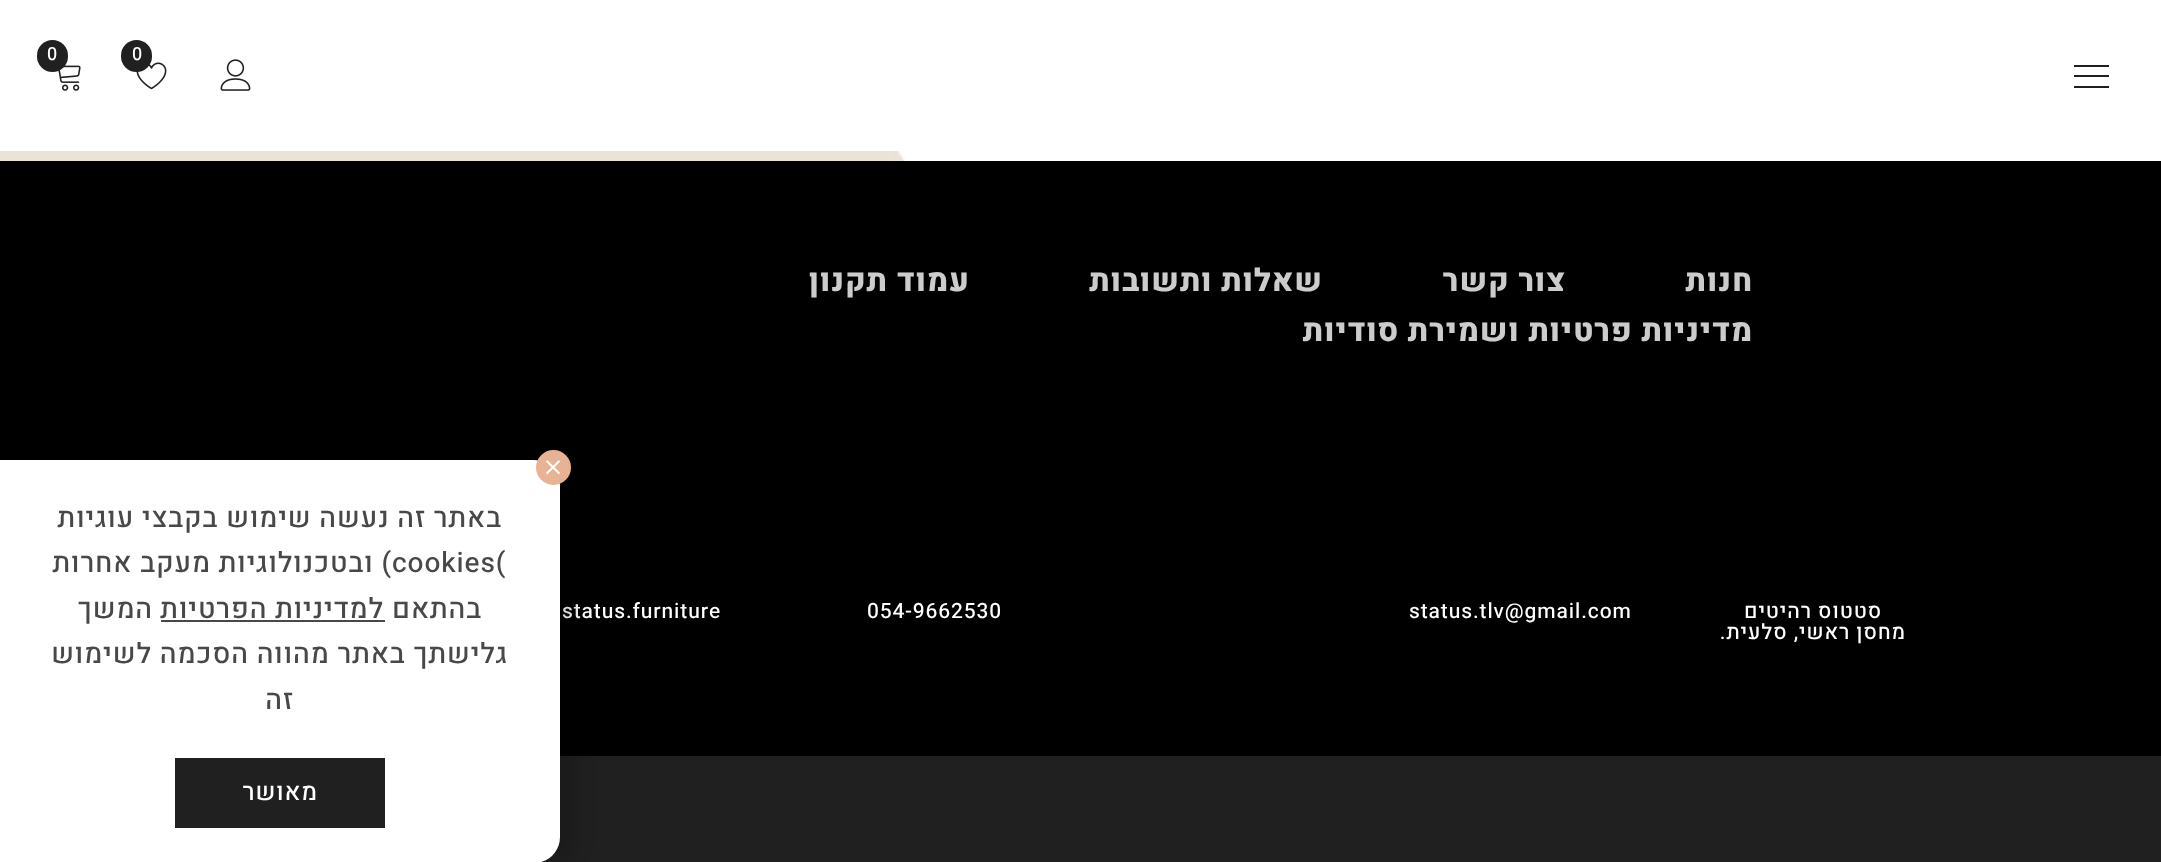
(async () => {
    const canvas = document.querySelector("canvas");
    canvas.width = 2161;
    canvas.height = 862;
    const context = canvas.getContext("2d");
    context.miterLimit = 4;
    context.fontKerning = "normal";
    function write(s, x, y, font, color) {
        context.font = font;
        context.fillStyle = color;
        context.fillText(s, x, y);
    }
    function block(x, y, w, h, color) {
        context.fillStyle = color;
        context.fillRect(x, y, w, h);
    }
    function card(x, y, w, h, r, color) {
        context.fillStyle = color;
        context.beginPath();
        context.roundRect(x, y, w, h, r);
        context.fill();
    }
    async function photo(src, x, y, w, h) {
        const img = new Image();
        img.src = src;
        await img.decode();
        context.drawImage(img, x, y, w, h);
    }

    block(0, 0, 2161, 862, "rgb(255, 255, 255)");
    await photo("media/1.png", 136, 62, 31, 28);
    card(121, 40, 31, 32, 15.5, "rgb(32, 32, 32)");
    write("0", 132, 60, "500 18px Heebo", "rgb(255, 255, 255)");
    await photo("media/2.png", 58, 65, 23, 26);
    card(37, 40, 31, 32, 15.5, "rgb(32, 32, 32)");
    context.letterSpacing = "0.9px";
    write("0", 47, 60, "500 18px Heebo", "rgb(255, 255, 255)");
    await photo("media/3.png", 220, 59, 31, 32);
    block(2074, 65, 35, 2, "rgb(32, 32, 32)");
    block(2074, 75, 35, 2, "rgb(32, 32, 32)");
    block(2074, 86, 35, 2, "rgb(32, 32, 32)");
    await photo("media/4.png", 0, 151, 906, 10);
    block(0, 161, 2161, 595, "rgb(0, 0, 0)");
    context.direction = "rtl";
    write("חנות", 1753, 291, "800 31.5px Heebo", "rgb(204, 204, 204)");
    write("צור קשר", 1566, 291, "800 31.5px Heebo", "rgb(204, 204, 204)");
    write("שאלות ותשובות", 1323, 291, "800 31.5px Heebo", "rgb(204, 204, 204)");
    write("עמוד תקנון", 970, 291, "800 31.5px Heebo", "rgb(204, 204, 204)");
    write("מדיניות פרטיות ושמירת סודיות", 1753, 341, "800 31.5px Heebo", "rgb(204, 204, 204)");
    write("סטטוס רהיטים", 1882, 618, "500 21px Heebo", "rgb(255, 255, 255)");
    write("מחסן ראשי, סלעית.", 1906, 639, "500 21px Heebo", "rgb(255, 255, 255)");
    context.direction = "ltr";
    write("status.tlv@gmail.com", 1409, 618, "500 21px Heebo", "rgb(255, 255, 255)");
    write("054-9662530", 867, 618, "500 21px Heebo", "rgb(255, 255, 255)");
    write("status.furniture", 562, 618, "500 21px Heebo", "rgb(255, 255, 255)");
    block(541, 756, 1620, 106, "rgb(32, 32, 32)");
    context.fillStyle = "rgba(0, 0, 0, 0.15)";
    context.filter = "blur(9px)";
    context.beginPath();
    context.roundRect(18, 460, 560, 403, 26);
    context.fill();
    context.filter = "none";
    context.fillStyle = "rgb(255, 255, 255)";
    context.beginPath();
    context.moveTo(0, 460);
    context.lineTo(534, 460);
    context.bezierCurveTo(548.5, 460, 560, 471.5, 560, 486);
    context.lineTo(560, 837);
    context.bezierCurveTo(560, 851.5, 548.5, 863, 534, 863);
    context.lineTo(0, 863);
    context.closePath();
    context.fill();
    context.fillStyle = "rgb(232, 178, 148)";
    context.beginPath();
    context.arc(553.5, 467.5, 16.5, 0, Math.PI * 2);
    context.fill();
    context.strokeStyle = "rgb(232, 178, 148)";
    context.lineWidth = 2;
    context.stroke();
    await photo("media/5.png", 546, 460, 14, 15);
    context.direction = "rtl";
    write("באתר זה נעשה שימוש בקבצי עוגיות", 502, 527, "500 28px Heebo", "rgb(72, 72, 72)");
    context.direction = "ltr";
    write("cookies(", 392, 572, "500 28px Heebo", "rgb(72, 72, 72)");
    context.direction = "rtl";
    write(") ובטכנולוגיות מעקב אחרות", 392, 572, "500 28px Heebo", "rgb(72, 72, 72)");
    write("בהתאם", 482, 618, "500 28px Heebo", "rgb(72, 72, 72)");
    write("למדיניות הפרטיות", 384, 618, "500 28px Heebo", "rgb(72, 72, 72)");
    block(161, 620, 224, 2, "rgb(72, 72, 72)");
    write("המשך", 153, 618, "500 28px Heebo", "rgb(72, 72, 72)");
    write("גלישתך באתר מהווה הסכמה לשימוש", 508, 663, "500 28px Heebo", "rgb(72, 72, 72)");
    write("זה", 294, 709, "500 28px Heebo", "rgb(72, 72, 72)");
    block(175, 758, 210, 70, "rgb(32, 32, 32)");
    write("מאושר", 318, 800, "500 24.5px Heebo", "rgb(255, 255, 255)");
})();
